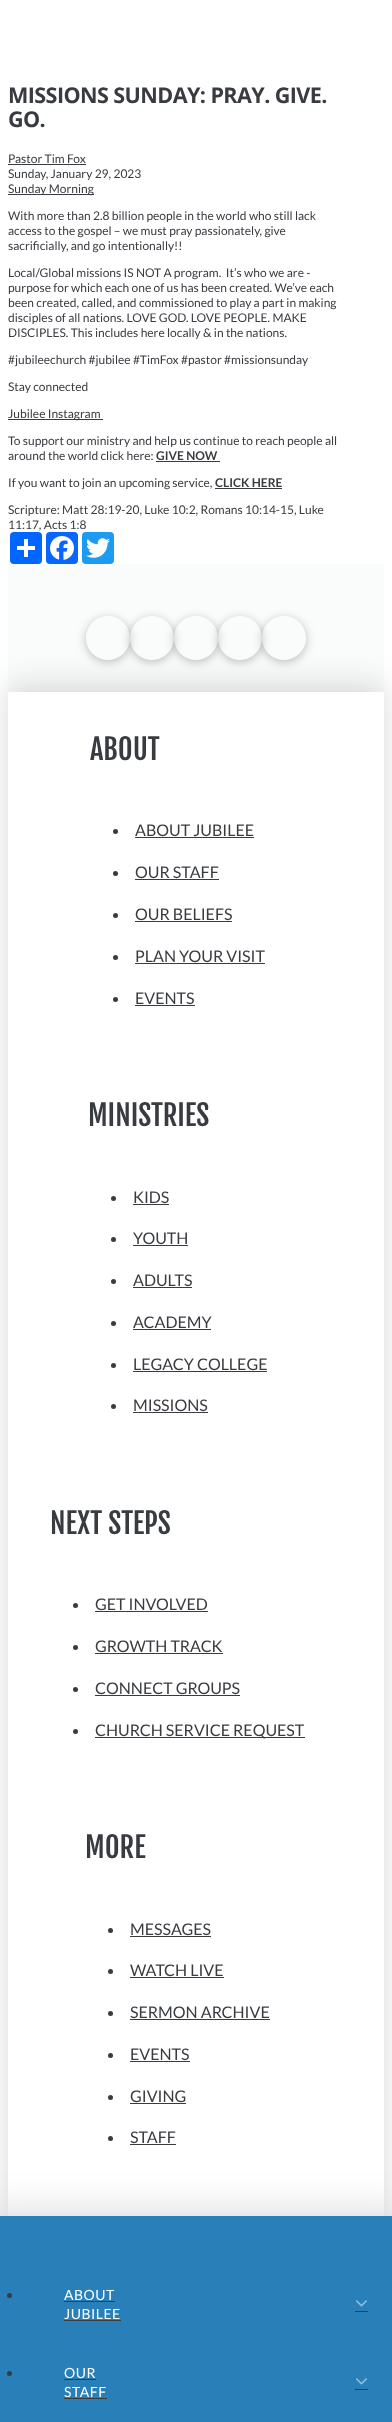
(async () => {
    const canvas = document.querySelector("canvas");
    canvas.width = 392;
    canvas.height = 2422;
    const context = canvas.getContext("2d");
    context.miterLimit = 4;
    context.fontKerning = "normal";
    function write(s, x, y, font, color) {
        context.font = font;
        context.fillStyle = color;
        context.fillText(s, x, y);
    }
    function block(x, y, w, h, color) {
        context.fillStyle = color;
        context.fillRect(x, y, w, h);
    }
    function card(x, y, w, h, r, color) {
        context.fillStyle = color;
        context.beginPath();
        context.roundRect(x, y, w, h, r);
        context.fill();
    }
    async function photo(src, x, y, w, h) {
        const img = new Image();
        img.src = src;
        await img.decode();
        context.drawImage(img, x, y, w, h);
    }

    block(0, 0, 392, 2422, "rgb(255, 255, 255)");
    context.letterSpacing = "-0.6px";
    write("MISSIONS SUNDAY: PRAY. GIVE.", 8, 103, "bold 21.6px Open Sans", "rgb(56, 59, 64)");
    write("GO.", 8, 127, "bold 21.6px Open Sans", "rgb(56, 59, 64)");
    context.letterSpacing = "0px";
    write("Pastor Tim Fox", 8, 163, "12px Lato", "rgb(56, 59, 64)");
    block(8, 164, 78, 1, "rgb(56, 59, 64)");
    write("Sunday, January 29, 2023", 8, 178, "12px Lato", "rgb(56, 59, 64)");
    block(8, 194, 86, 1, "rgb(56, 59, 64)");
    write("Sunday Morning", 8, 193, "12px Lato", "rgb(56, 59, 64)");
    write("With more than 2.8 billion people in the world who still lack", 8, 220, "12px Lato", "rgb(56, 59, 64)");
    write("access to the gospel – we must pray passionately, give", 8, 235, "12px Lato", "rgb(56, 59, 64)");
    write("sacrificially, and go intentionally!!", 8, 250, "12px Lato", "rgb(56, 59, 64)");
    write("Local/Global missions IS NOT A program.  It’s who we are -", 8, 277, "12px Lato", "rgb(56, 59, 64)");
    write("purpose for which each one of us has been created. We’ve each", 8, 292, "12px Lato", "rgb(56, 59, 64)");
    write("been created, called, and commissioned to play a part in making", 8, 307, "12px Lato", "rgb(56, 59, 64)");
    write("disciples of all nations. LOVE GOD. LOVE PEOPLE. MAKE", 8, 322, "12px Lato", "rgb(56, 59, 64)");
    write("DISCIPLES. This includes here locally & in the nations.", 8, 337, "12px Lato", "rgb(56, 59, 64)");
    write("#jubileechurch #jubilee #TimFox #pastor #missionsunday", 8, 364, "12px Lato", "rgb(56, 59, 64)");
    write("Stay connected", 8, 391, "12px Lato", "rgb(56, 59, 64)");
    block(8, 419, 95, 1, "rgb(56, 59, 64)");
    write("Jubilee Instagram", 8, 418, "12px Lato", "rgb(56, 59, 64)");
    write("To support our ministry and help us continue to reach people all", 8, 445, "12px Lato", "rgb(56, 59, 64)");
    write("around the world click here:", 8, 460, "12px Lato", "rgb(56, 59, 64)");
    write("GIVE NOW", 156, 460, "bold 12px Lato", "rgb(56, 59, 64)");
    block(156, 461, 64, 1, "rgb(56, 59, 64)");
    write("If you want to join an upcoming service,", 8, 487, "12px Lato", "rgb(56, 59, 64)");
    write("CLICK HERE", 215, 487, "bold 12px Lato", "rgb(56, 59, 64)");
    block(215, 488, 67, 1, "rgb(56, 59, 64)");
    write("Scripture: Matt 28:19-20, Luke 10:2, Romans 10:14-15, Luke", 8, 514, "12px Lato", "rgb(56, 59, 64)");
    write("11:17, Acts 1:8", 8, 529, "12px Lato", "rgb(56, 59, 64)");
    card(10, 532, 32, 32, 4, "rgb(1, 102, 255)");
    block(24, 539, 4, 18, "rgb(255, 255, 255)");
    block(17, 546, 18, 4, "rgb(255, 255, 255)");
    card(46, 532, 32, 32, 4, "rgb(8, 102, 255)");
    await photo("media/1.png", 50, 536, 24, 24);
    card(82, 532, 32, 32, 4, "rgb(29, 155, 240)");
    await photo("media/2.png", 86, 538, 24, 20);
    block(8, 564, 376, 128, "rgb(250, 251, 251)");
    context.save();
    context.beginPath();
    context.moveTo(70, 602);
    context.lineTo(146, 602);
    context.lineTo(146, 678);
    context.lineTo(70, 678);
    context.closePath();
    context.moveTo(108, 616);
    context.bezierCurveTo(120, 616, 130, 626, 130, 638);
    context.bezierCurveTo(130, 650, 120, 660, 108, 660);
    context.bezierCurveTo(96, 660, 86, 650, 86, 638);
    context.bezierCurveTo(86, 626, 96, 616, 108, 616);
    context.closePath();
    context.clip("evenodd");
    context.fillStyle = "rgba(0, 0, 0, 0.25)";
    context.filter = "blur(5px)";
    context.beginPath();
    context.roundRect(86, 618, 44, 44, 22);
    context.fill();
    context.filter = "none";
    context.restore();
    context.save();
    context.beginPath();
    context.moveTo(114, 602);
    context.lineTo(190, 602);
    context.lineTo(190, 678);
    context.lineTo(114, 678);
    context.closePath();
    context.moveTo(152, 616);
    context.bezierCurveTo(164, 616, 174, 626, 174, 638);
    context.bezierCurveTo(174, 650, 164, 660, 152, 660);
    context.bezierCurveTo(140, 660, 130, 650, 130, 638);
    context.bezierCurveTo(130, 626, 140, 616, 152, 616);
    context.closePath();
    context.clip("evenodd");
    context.fillStyle = "rgba(0, 0, 0, 0.25)";
    context.filter = "blur(5px)";
    context.beginPath();
    context.roundRect(130, 618, 44, 44, 22);
    context.fill();
    context.filter = "none";
    context.restore();
    context.save();
    context.beginPath();
    context.moveTo(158, 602);
    context.lineTo(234, 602);
    context.lineTo(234, 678);
    context.lineTo(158, 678);
    context.closePath();
    context.moveTo(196, 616);
    context.bezierCurveTo(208, 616, 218, 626, 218, 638);
    context.bezierCurveTo(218, 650, 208, 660, 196, 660);
    context.bezierCurveTo(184, 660, 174, 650, 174, 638);
    context.bezierCurveTo(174, 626, 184, 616, 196, 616);
    context.closePath();
    context.clip("evenodd");
    context.fillStyle = "rgba(0, 0, 0, 0.25)";
    context.filter = "blur(5px)";
    context.beginPath();
    context.roundRect(174, 618, 44, 44, 22);
    context.fill();
    context.filter = "none";
    context.restore();
    context.save();
    context.beginPath();
    context.moveTo(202, 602);
    context.lineTo(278, 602);
    context.lineTo(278, 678);
    context.lineTo(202, 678);
    context.closePath();
    context.moveTo(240, 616);
    context.bezierCurveTo(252, 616, 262, 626, 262, 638);
    context.bezierCurveTo(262, 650, 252, 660, 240, 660);
    context.bezierCurveTo(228, 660, 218, 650, 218, 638);
    context.bezierCurveTo(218, 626, 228, 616, 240, 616);
    context.closePath();
    context.clip("evenodd");
    context.fillStyle = "rgba(0, 0, 0, 0.25)";
    context.filter = "blur(5px)";
    context.beginPath();
    context.roundRect(218, 618, 44, 44, 22);
    context.fill();
    context.filter = "none";
    context.restore();
    context.save();
    context.beginPath();
    context.moveTo(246, 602);
    context.lineTo(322, 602);
    context.lineTo(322, 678);
    context.lineTo(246, 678);
    context.closePath();
    context.moveTo(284, 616);
    context.bezierCurveTo(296, 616, 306, 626, 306, 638);
    context.bezierCurveTo(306, 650, 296, 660, 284, 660);
    context.bezierCurveTo(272, 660, 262, 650, 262, 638);
    context.bezierCurveTo(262, 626, 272, 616, 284, 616);
    context.closePath();
    context.clip("evenodd");
    context.fillStyle = "rgba(0, 0, 0, 0.25)";
    context.filter = "blur(5px)";
    context.beginPath();
    context.roundRect(262, 618, 44, 44, 22);
    context.fill();
    context.filter = "none";
    context.restore();
    context.save();
    context.beginPath();
    context.moveTo(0, 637);
    context.lineTo(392, 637);
    context.lineTo(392, 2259);
    context.lineTo(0, 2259);
    context.closePath();
    context.moveTo(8, 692);
    context.lineTo(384, 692);
    context.lineTo(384, 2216);
    context.lineTo(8, 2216);
    context.closePath();
    context.clip("evenodd");
    context.fillStyle = "rgba(0, 0, 0, 0.15)";
    context.filter = "blur(16px)";
    context.beginPath();
    context.rect(8, 686, 376, 1524);
    context.fill();
    context.filter = "none";
    context.restore();
    write("ABOUT", 90, 760, "28.5px Fjalla One", "rgb(56, 59, 64)");
    context.beginPath();
    context.arc(115.5, 831.5, 2.5, 0, Math.PI * 2);
    context.fill();
    write("ABOUT JUBILEE", 135, 836, "16px Lato", "rgb(56, 59, 64)");
    block(135, 837, 119, 1, "rgb(56, 59, 64)");
    context.beginPath();
    context.arc(115.5, 873.5, 2.5, 0, Math.PI * 2);
    context.fill();
    write("OUR STAFF", 135, 878, "16px Lato", "rgb(56, 59, 64)");
    block(135, 879, 84, 1, "rgb(56, 59, 64)");
    context.beginPath();
    context.arc(115.5, 915.5, 2.5, 0, Math.PI * 2);
    context.fill();
    write("OUR BELIEFS", 135, 920, "16px Lato", "rgb(56, 59, 64)");
    block(135, 921, 97, 1, "rgb(56, 59, 64)");
    context.beginPath();
    context.arc(115.5, 957.5, 2.5, 0, Math.PI * 2);
    context.fill();
    write("PLAN YOUR VISIT", 135, 962, "16px Lato", "rgb(56, 59, 64)");
    block(135, 963, 130, 1, "rgb(56, 59, 64)");
    context.beginPath();
    context.arc(115.5, 999.5, 2.5, 0, Math.PI * 2);
    context.fill();
    write("EVENTS", 135, 1004, "16px Lato", "rgb(56, 59, 64)");
    block(135, 1005, 60, 1, "rgb(56, 59, 64)");
    write("MINISTRIES", 88, 1126, "28.5px Fjalla One", "rgb(56, 59, 64)");
    context.beginPath();
    context.arc(113.5, 1198.5, 2.5, 0, Math.PI * 2);
    context.fill();
    write("KIDS", 133, 1203, "16px Lato", "rgb(56, 59, 64)");
    block(133, 1204, 36, 1, "rgb(56, 59, 64)");
    context.beginPath();
    context.arc(113.5, 1239.5, 2.5, 0, Math.PI * 2);
    context.fill();
    write("YOUTH", 133, 1244, "16px Lato", "rgb(56, 59, 64)");
    block(133, 1245, 55, 1, "rgb(56, 59, 64)");
    context.beginPath();
    context.arc(113.5, 1281.5, 2.5, 0, Math.PI * 2);
    context.fill();
    write("ADULTS", 133, 1286, "16px Lato", "rgb(56, 59, 64)");
    block(133, 1287, 59, 1, "rgb(56, 59, 64)");
    context.beginPath();
    context.arc(113.5, 1323.5, 2.5, 0, Math.PI * 2);
    context.fill();
    write("ACADEMY", 133, 1328, "16px Lato", "rgb(56, 59, 64)");
    block(133, 1329, 78, 1, "rgb(56, 59, 64)");
    context.beginPath();
    context.arc(113.5, 1365.5, 2.5, 0, Math.PI * 2);
    context.fill();
    write("LEGACY COLLEGE", 133, 1370, "16px Lato", "rgb(56, 59, 64)");
    block(133, 1371, 134, 1, "rgb(56, 59, 64)");
    context.beginPath();
    context.arc(113.5, 1406.5, 2.5, 0, Math.PI * 2);
    context.fill();
    write("MISSIONS", 133, 1411, "16px Lato", "rgb(56, 59, 64)");
    block(133, 1412, 75, 1, "rgb(56, 59, 64)");
    write("NEXT STEPS", 50, 1534, "28.5px Fjalla One", "rgb(56, 59, 64)");
    context.beginPath();
    context.arc(75.5, 1605.5, 2.5, 0, Math.PI * 2);
    context.fill();
    write("GET INVOLVED", 95, 1610, "16px Lato", "rgb(56, 59, 64)");
    block(95, 1611, 113, 1, "rgb(56, 59, 64)");
    context.beginPath();
    context.arc(75.5, 1647.5, 2.5, 0, Math.PI * 2);
    context.fill();
    write("GROWTH TRACK", 95, 1652, "16px Lato", "rgb(56, 59, 64)");
    block(95, 1653, 128, 1, "rgb(56, 59, 64)");
    context.beginPath();
    context.arc(75.5, 1689.5, 2.5, 0, Math.PI * 2);
    context.fill();
    write("CONNECT GROUPS", 95, 1694, "16px Lato", "rgb(56, 59, 64)");
    block(95, 1695, 145, 1, "rgb(56, 59, 64)");
    context.beginPath();
    context.arc(75.5, 1731.5, 2.5, 0, Math.PI * 2);
    context.fill();
    block(95, 1737, 210, 1, "rgb(56, 59, 64)");
    write("CHURCH SERVICE REQUEST", 95, 1736, "16px Lato", "rgb(56, 59, 64)");
    write("MORE", 85, 1858, "28.5px Fjalla One", "rgb(56, 59, 64)");
    context.beginPath();
    context.arc(110.5, 1930.5, 2.5, 0, Math.PI * 2);
    context.fill();
    write("MESSAGES", 130, 1935, "16px Lato", "rgb(56, 59, 64)");
    block(130, 1936, 81, 1, "rgb(56, 59, 64)");
    context.beginPath();
    context.arc(110.5, 1971.5, 2.5, 0, Math.PI * 2);
    context.fill();
    write("WATCH LIVE", 130, 1976, "16px Lato", "rgb(56, 59, 64)");
    block(130, 1977, 94, 1, "rgb(56, 59, 64)");
    context.beginPath();
    context.arc(110.5, 2013.5, 2.5, 0, Math.PI * 2);
    context.fill();
    write("SERMON ARCHIVE", 130, 2018, "16px Lato", "rgb(56, 59, 64)");
    block(130, 2019, 140, 1, "rgb(56, 59, 64)");
    context.beginPath();
    context.arc(110.5, 2055.5, 2.5, 0, Math.PI * 2);
    context.fill();
    write("EVENTS", 130, 2060, "16px Lato", "rgb(56, 59, 64)");
    block(130, 2061, 60, 1, "rgb(56, 59, 64)");
    context.beginPath();
    context.arc(110.5, 2097.5, 2.5, 0, Math.PI * 2);
    context.fill();
    write("GIVING", 130, 2102, "16px Lato", "rgb(56, 59, 64)");
    block(130, 2103, 56, 1, "rgb(56, 59, 64)");
    context.beginPath();
    context.arc(110.5, 2138.5, 2.5, 0, Math.PI * 2);
    context.fill();
    write("STAFF", 130, 2143, "16px Lato", "rgb(56, 59, 64)");
    block(130, 2144, 46, 1, "rgb(56, 59, 64)");
    context.fillStyle = "rgba(0, 0, 0, 0.25)";
    context.filter = "blur(24px)";
    context.beginPath();
    context.rect(-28, 2224, 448, 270);
    context.fill();
    context.filter = "none";
    block(0, 2216, 392, 206, "rgb(41, 128, 185)");
    context.fillStyle = "rgb(56, 59, 64)";
    context.beginPath();
    context.arc(9.5, 2295.5, 2.5, 0, Math.PI * 2);
    context.fill();
    context.letterSpacing = "0.5px";
    write("ABOUT", 64, 2300, "14px Lato", "rgb(255, 255, 255)");
    block(64, 2301, 51, 1, "rgb(56, 59, 64)");
    write("JUBILEE", 64, 2319, "14px Lato", "rgb(255, 255, 255)");
    block(64, 2320, 57, 1, "rgb(56, 59, 64)");
    block(355, 2311, 13, 1, "rgb(56, 59, 64)");
    await photo("media/3.png", 356, 2300, 11, 7);
    context.beginPath();
    context.arc(9.5, 2373.5, 2.5, 0, Math.PI * 2);
    context.fill();
    write("OUR", 64, 2378, "14px Lato", "rgb(255, 255, 255)");
    block(64, 2379, 32, 1, "rgb(56, 59, 64)");
    write("STAFF", 64, 2397, "14px Lato", "rgb(255, 255, 255)");
    block(64, 2398, 43, 1, "rgb(56, 59, 64)");
    block(355, 2389, 13, 1, "rgb(56, 59, 64)");
    await photo("media/3.png", 356, 2378, 11, 7);
})();
